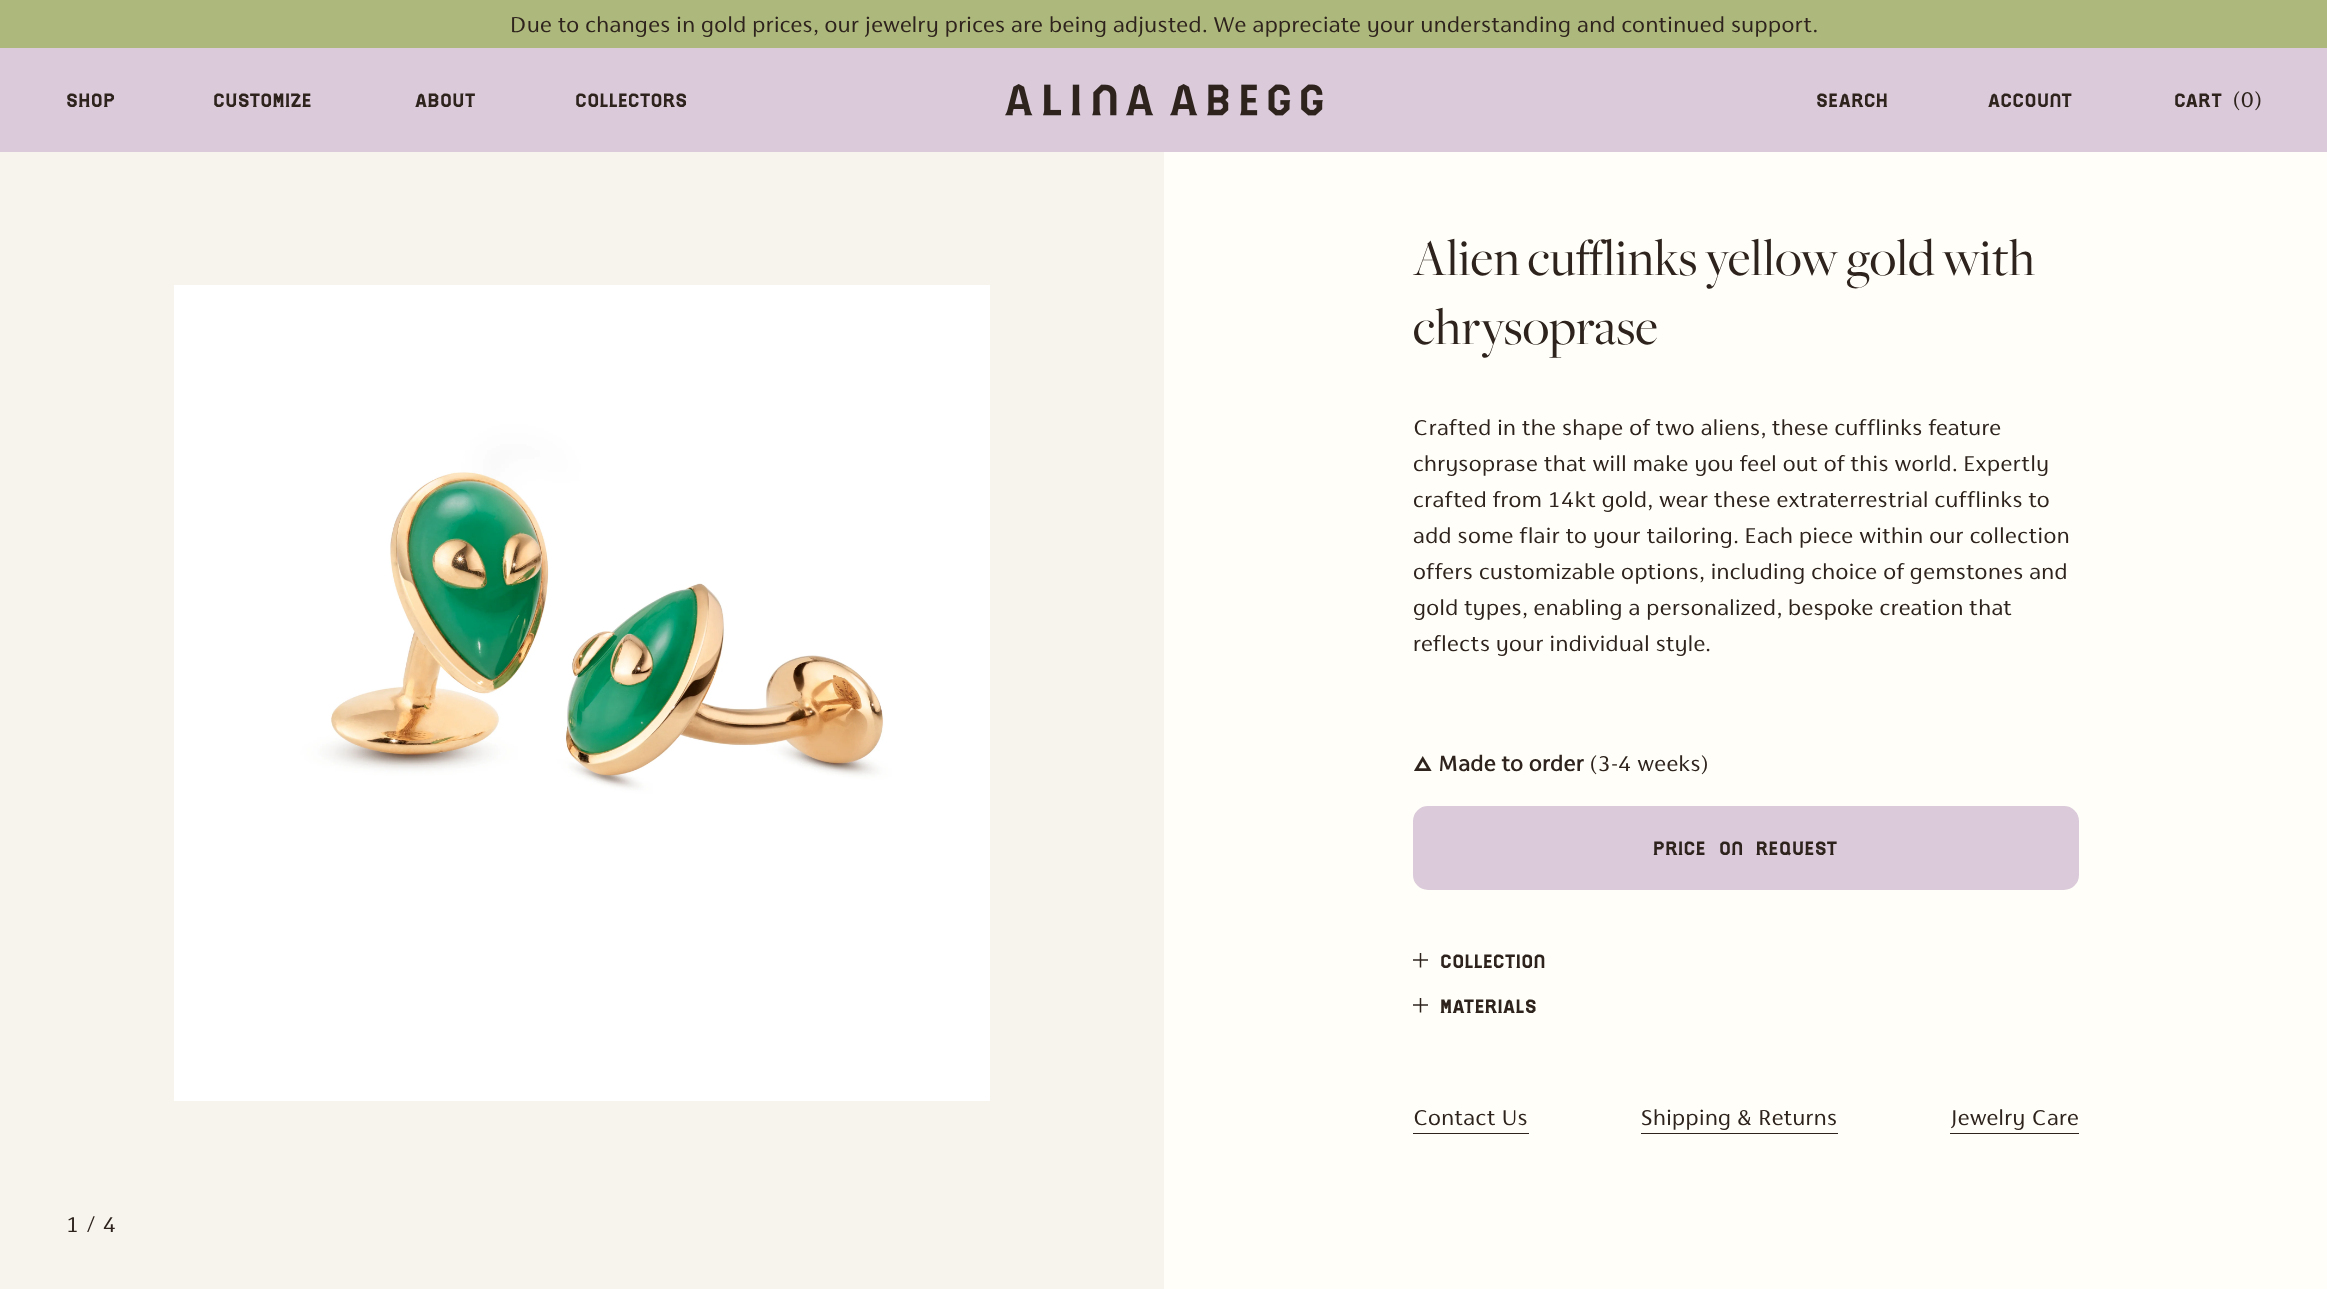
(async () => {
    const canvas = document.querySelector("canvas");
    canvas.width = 2327;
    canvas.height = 1289;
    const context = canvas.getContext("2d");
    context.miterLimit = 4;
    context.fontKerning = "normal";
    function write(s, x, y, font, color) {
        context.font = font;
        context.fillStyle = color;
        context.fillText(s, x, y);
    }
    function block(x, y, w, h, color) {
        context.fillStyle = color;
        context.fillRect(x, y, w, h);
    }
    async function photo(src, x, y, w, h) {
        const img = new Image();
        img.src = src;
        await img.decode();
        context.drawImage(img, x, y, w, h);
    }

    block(0, 0, 2327, 1289, "rgb(255, 254, 248)");
    block(0, 0, 2327, 48, "rgb(173, 184, 124)");
    context.letterSpacing = "0.42px";
    write("Due to changes in gold prices, our jewelry prices are being adjusted. We appreciate your understanding and continued support.", 510, 32, "21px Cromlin", "rgb(46, 35, 29)");
    block(0, 48, 2327, 104, "rgb(219, 203, 218)");
    write("SHOP", 66, 107, "21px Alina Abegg", "rgb(46, 35, 29)");
    write("CUSTOMIZE", 213, 107, "21px Alina Abegg", "rgb(46, 35, 29)");
    write("ABOUT", 415, 107, "21px Alina Abegg", "rgb(46, 35, 29)");
    write("COLLECTORS", 575, 107, "21px Alina Abegg", "rgb(46, 35, 29)");
    await photo("media/1.png", 1005, 84, 318, 32);
    write("SEARCH", 1816, 107, "21px Alina Abegg", "rgb(46, 35, 29)");
    write("ACCOUNT", 1988, 107, "21px Alina Abegg", "rgb(46, 35, 29)");
    write("CART", 2174, 107, "21px Alina Abegg", "rgb(46, 35, 29)");
    write("(0)", 2233, 107, "21px Cromlin", "rgb(46, 35, 29)");
    write("Alien cufflinks yellow gold with", 1413, 275, "54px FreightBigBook", "rgb(46, 35, 29)");
    write("chrysoprase", 1413, 344, "54px FreightBigBook", "rgb(46, 35, 29)");
    write("Crafted in the shape of two aliens, these cufflinks feature", 1413, 435, "21px Cromlin", "rgb(46, 35, 29)");
    write("chrysoprase that will make you feel out of this world. Expertly", 1413, 471, "21px Cromlin", "rgb(46, 35, 29)");
    write("crafted from 14kt gold, wear these extraterrestrial cufflinks to", 1413, 507, "21px Cromlin", "rgb(46, 35, 29)");
    write("add some flair to your tailoring. Each piece within our collection", 1413, 543, "21px Cromlin", "rgb(46, 35, 29)");
    write("offers customizable options, including choice of gemstones and", 1413, 579, "21px Cromlin", "rgb(46, 35, 29)");
    write("gold types, enabling a personalized, bespoke creation that", 1413, 615, "21px Cromlin", "rgb(46, 35, 29)");
    write("reflects your individual style.", 1413, 651, "21px Cromlin", "rgb(46, 35, 29)");
    await photo("media/2.png", 1414, 756, 18, 15);
    write("Made to order", 1438, 771, "bold 21px Cromlin", "rgb(46, 35, 29)");
    write("(3-4 weeks)", 1590, 771, "21px Cromlin", "rgb(46, 35, 29)");
    context.fillStyle = "rgb(219, 203, 218)";
    context.beginPath();
    context.roundRect(1414, 807, 664, 82, 14);
    context.fill();
    context.strokeStyle = "rgb(219, 203, 218)";
    context.lineWidth = 2;
    context.stroke();
    context.wordSpacing = "6px";
    write("PRICE ON REQUEST", 1653, 855, "21px Alina Abegg", "rgb(46, 35, 29)");
    block(1413, 959, 15, 2, "rgb(98, 90, 84)");
    context.save();
    context.beginPath();
    context.rect(1413, 953, 15, 15);
    context.clip();
    context.beginPath();
    context.moveTo(1420.5, 952.5);
    context.lineTo(1420.5, 967.5);
    context.strokeStyle = "rgb(46, 35, 29)";
    context.lineWidth = 1.5;
    context.stroke();
    context.restore();
    context.wordSpacing = "0px";
    write("COLLECTION", 1440, 968, "21px Alina Abegg", "rgb(46, 35, 29)");
    block(1413, 1004, 15, 2, "rgb(98, 90, 84)");
    context.save();
    context.beginPath();
    context.rect(1413, 998, 15, 15);
    context.clip();
    context.beginPath();
    context.moveTo(1420.5, 997.5);
    context.lineTo(1420.5, 1012.5);
    context.strokeStyle = "rgb(46, 35, 29)";
    context.lineWidth = 1.5;
    context.stroke();
    context.restore();
    write("MATERIALS", 1440, 1013, "21px Alina Abegg", "rgb(46, 35, 29)");
    write("Contact Us", 1413, 1125, "21px Cromlin", "rgb(46, 35, 29)");
    block(1413, 1133, 116, 1, "rgb(46, 35, 29)");
    write("Shipping & Returns", 1641, 1125, "21px Cromlin", "rgb(46, 35, 29)");
    block(1641, 1133, 197, 1, "rgb(46, 35, 29)");
    write("Jewelry Care", 1951, 1125, "21px Cromlin", "rgb(46, 35, 29)");
    block(1950, 1133, 129, 1, "rgb(46, 35, 29)");
    block(0, 152, 1164, 1137, "rgb(247, 244, 237)");
    await photo("media/3.png", 174, 285, 816, 816);
    write("1 / 4", 66, 1232, "21px Cromlin", "rgb(46, 35, 29)");
})();
